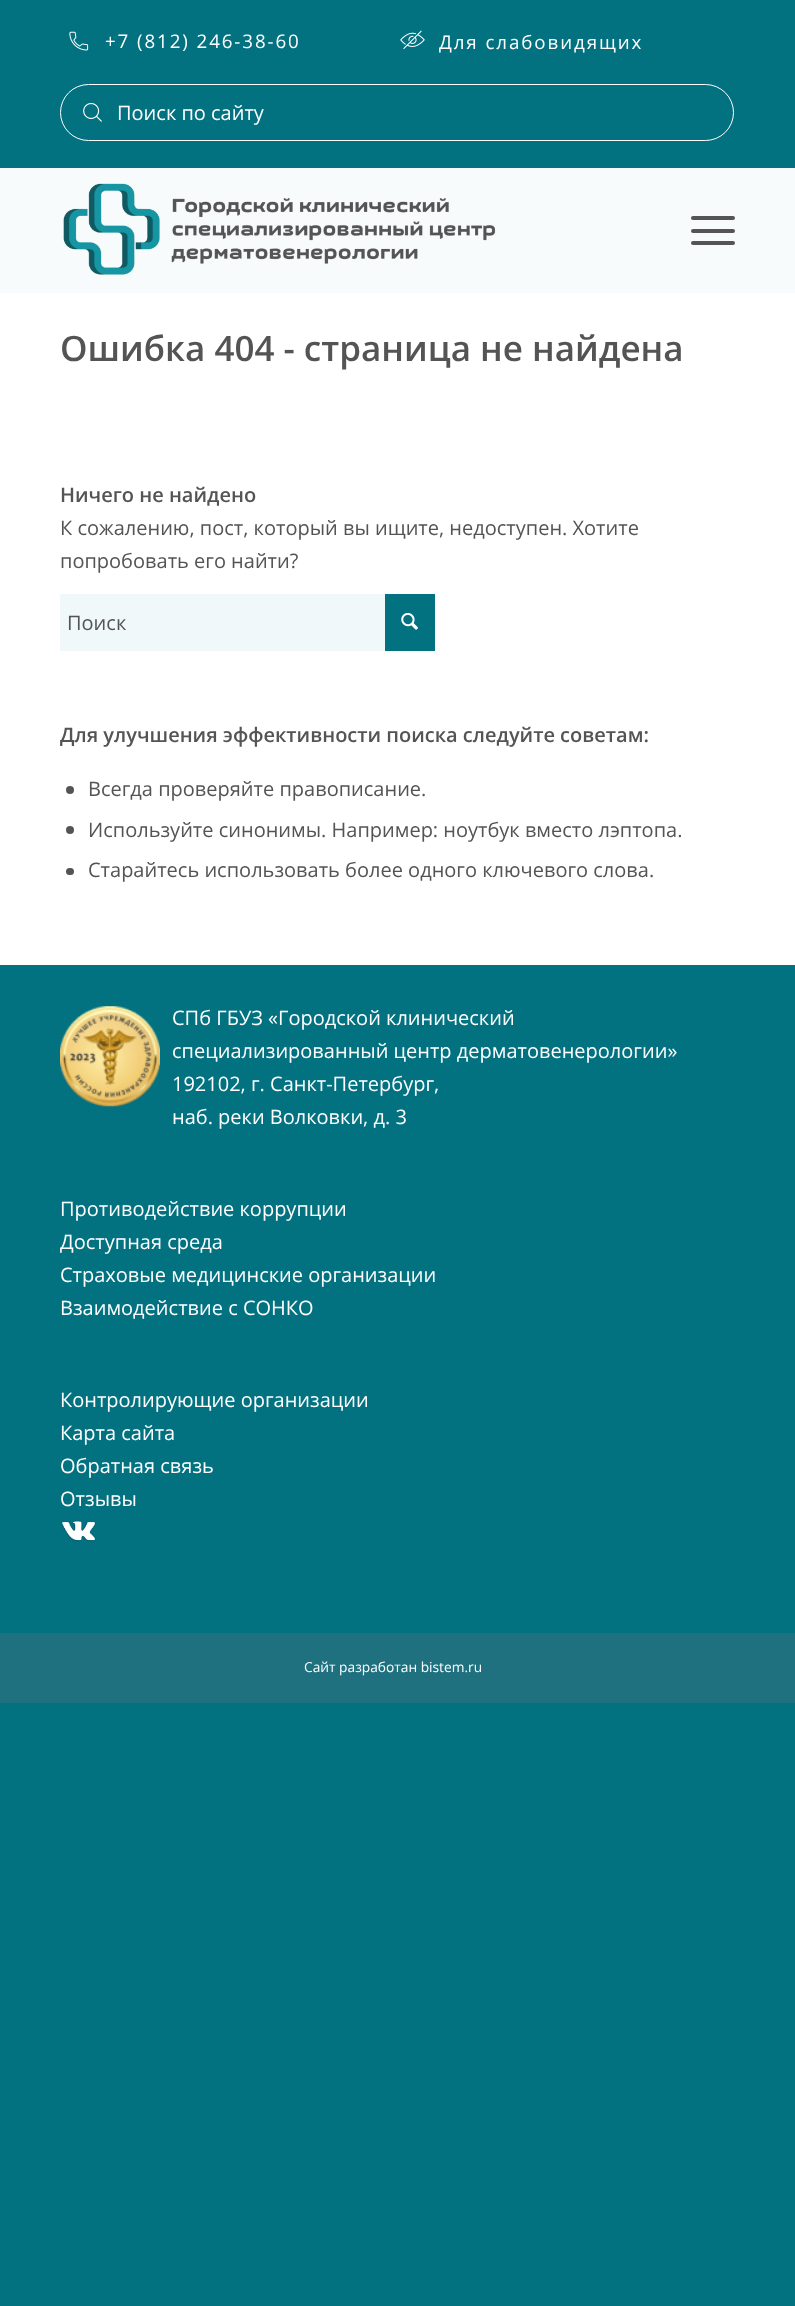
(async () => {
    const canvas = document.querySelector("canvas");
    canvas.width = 795;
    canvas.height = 2306;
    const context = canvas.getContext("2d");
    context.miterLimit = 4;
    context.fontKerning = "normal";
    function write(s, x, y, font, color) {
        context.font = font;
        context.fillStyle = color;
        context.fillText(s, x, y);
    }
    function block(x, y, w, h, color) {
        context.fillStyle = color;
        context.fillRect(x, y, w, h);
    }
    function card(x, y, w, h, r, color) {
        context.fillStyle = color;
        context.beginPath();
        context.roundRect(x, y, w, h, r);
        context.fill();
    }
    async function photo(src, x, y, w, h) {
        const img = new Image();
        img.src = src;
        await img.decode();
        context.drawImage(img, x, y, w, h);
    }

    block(0, 0, 795, 2306, "rgb(2, 113, 128)");
    await photo("media/1.png", 69, 31, 20, 20);
    context.letterSpacing = "1.9px";
    write("+7 (812) 246-38-60", 105, 48, "18.75px Open Sans", "rgb(255, 255, 255)");
    await photo("media/2.png", 400, 30, 25, 19);
    write("Для слабовидящих", 439, 49, "18.75px Open Sans", "rgb(255, 255, 255)");
    context.beginPath();
    context.roundRect(60.5, 84.5, 673, 56, 28);
    context.strokeStyle = "rgb(255, 255, 255)";
    context.stroke();
    await photo("media/3.png", 83, 103, 19, 19);
    context.letterSpacing = "0px";
    write("Поиск по сайту", 117, 120, "20px Open Sans", "rgb(255, 255, 255)");
    block(0, 168, 795, 125, "rgb(247, 251, 252)");
    await photo("media/4.png", 63, 183, 433, 92);
    card(691, 229, 44, 4, 2, "rgb(84, 84, 84)");
    card(691, 216, 44, 4, 2, "rgb(84, 84, 84)");
    card(691, 241, 44, 4, 2, "rgb(84, 84, 84)");
    block(0, 293, 795, 672, "rgb(255, 255, 255)");
    write("Ошибка 404 - страница не найдена", 60, 361, "600 35px Open Sans", "rgb(84, 84, 84)");
    write("Ничего не найдено", 60, 502, "600 20px Open Sans", "rgb(84, 84, 84)");
    write("К сожалению, пост, который вы ищите, недоступен. Хотите", 60, 535, "20px Open Sans", "rgb(84, 84, 84)");
    write("попробовать его найти?", 60, 568, "20px Open Sans", "rgb(84, 84, 84)");
    block(60, 594, 325, 57, "rgb(240, 248, 250)");
    write("Поиск", 67, 630, "20px Open Sans", "rgb(84, 84, 84)");
    block(385, 594, 50, 57, "rgb(2, 113, 128)");
    await photo("media/5.png", 401, 612, 17, 18);
    write("Для улучшения эффективности поиска следуйте советам:", 60, 742, "600 20px Open Sans", "rgb(84, 84, 84)");
    context.beginPath();
    context.arc(70, 790, 4, 0, Math.PI * 2);
    context.fill();
    write("Всегда проверяйте правописание.", 88, 796, "20px Open Sans", "rgb(84, 84, 84)");
    context.beginPath();
    context.arc(70, 830, 4, 0, Math.PI * 2);
    context.fill();
    write("Используйте синонимы. Например: ноутбук вместо лэптопа.", 88, 837, "20px Open Sans", "rgb(84, 84, 84)");
    card(66, 868, 8, 7, 3.5, "rgb(84, 84, 84)");
    write("Старайтесь использовать более одного ключевого слова.", 88, 877, "20px Open Sans", "rgb(84, 84, 84)");
    await photo("media/6.png", 60, 1006, 100, 101);
    write("СПб ГБУЗ «Городской клинический", 172, 1025, "20px Open Sans", "rgb(255, 255, 255)");
    write("специализированный центр дерматовенерологии»", 172, 1058, "20px Open Sans", "rgb(255, 255, 255)");
    write("192102, г. Санкт-Петербург,", 172, 1091, "20px Open Sans", "rgb(255, 255, 255)");
    write("наб. реки Волковки, д. 3", 172, 1124, "20px Open Sans", "rgb(255, 255, 255)");
    write("Противодействие коррупции", 60, 1216, "20px Open Sans", "rgb(255, 255, 255)");
    context.save();
    context.beginPath();
    context.rect(60, 1175, 675, 166);
    context.clip();
    write("Доступная среда", 60, 1249, "20px Open Sans", "rgb(255, 255, 255)");
    context.restore();
    write("Страховые медицинские организации", 60, 1282, "20px Open Sans", "rgb(255, 255, 255)");
    write("Взаимодействие с СОНКО", 60, 1315, "20px Open Sans", "rgb(255, 255, 255)");
    write("Контролирующие организации", 60, 1407, "20px Open Sans", "rgb(255, 255, 255)");
    write("Карта сайта", 60, 1440, "20px Open Sans", "rgb(255, 255, 255)");
    write("Обратная связь", 60, 1473, "20px Open Sans", "rgb(255, 255, 255)");
    write("Отзывы", 60, 1506, "20px Open Sans", "rgb(255, 255, 255)");
    await photo("media/7.png", 61, 1520, 35, 22);
    block(0, 1633, 795, 70, "rgb(31, 113, 128)");
    write("Сайт разработан bistem.ru", 304, 1672, "13.75px Open Sans", "rgb(255, 255, 255)");
})();
